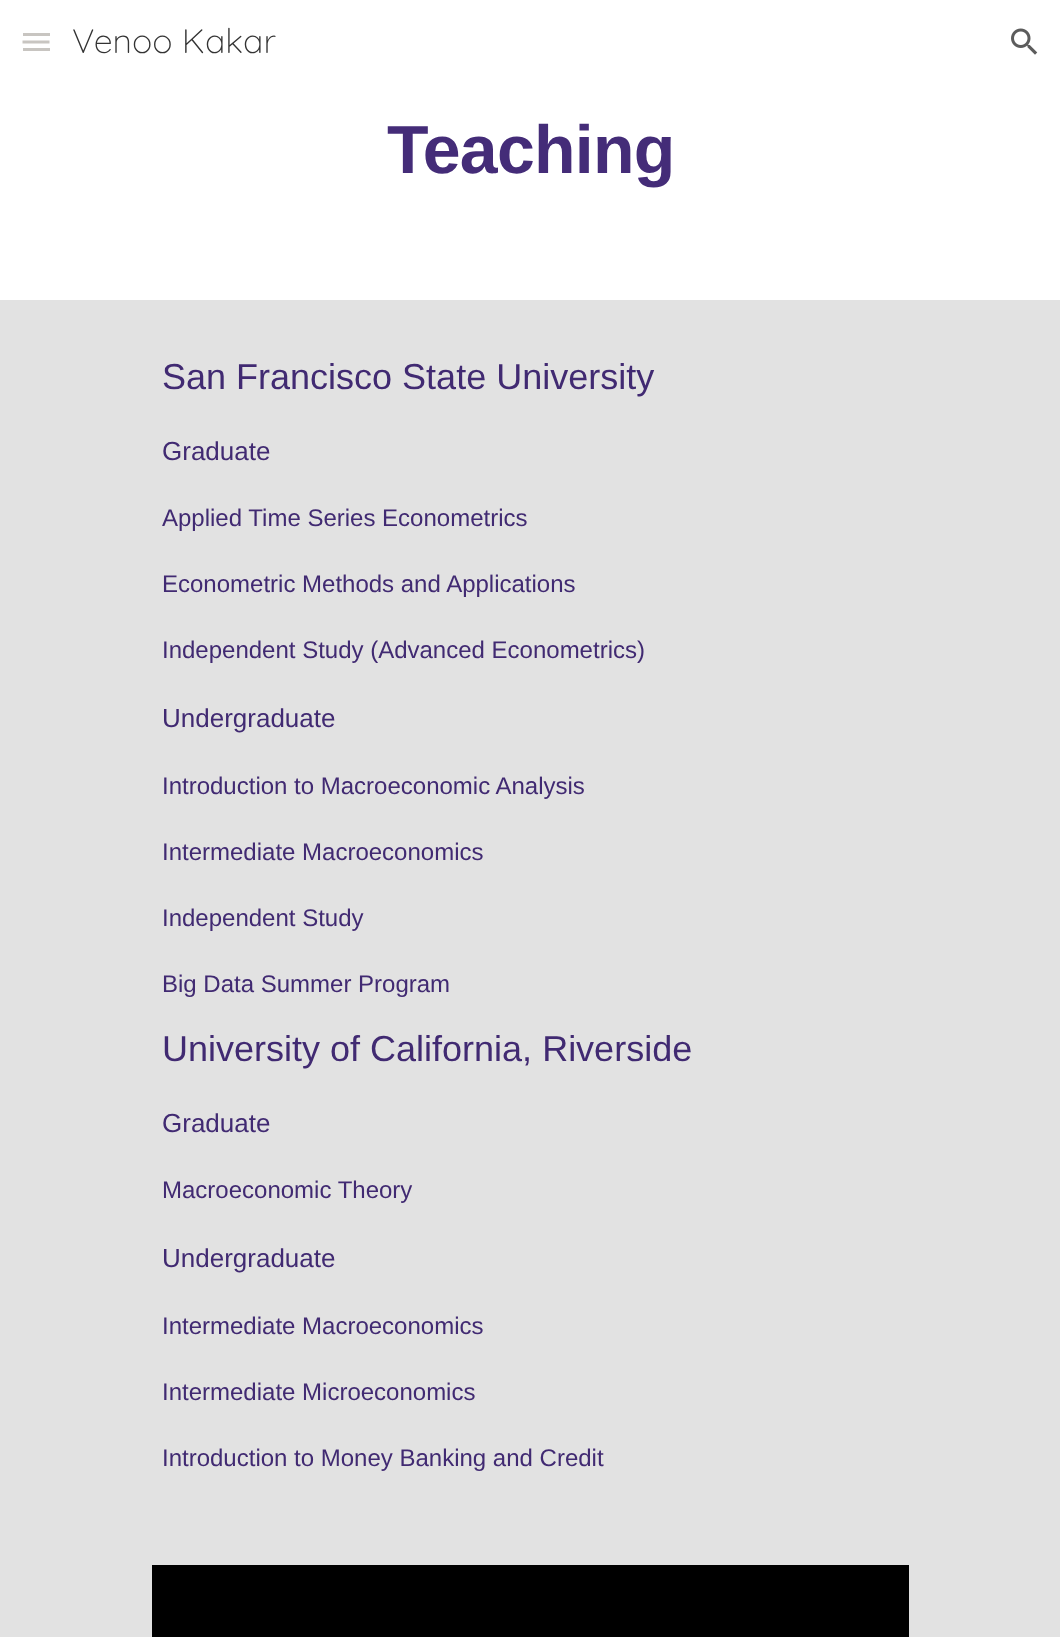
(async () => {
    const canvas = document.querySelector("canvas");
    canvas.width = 1060;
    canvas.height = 1637;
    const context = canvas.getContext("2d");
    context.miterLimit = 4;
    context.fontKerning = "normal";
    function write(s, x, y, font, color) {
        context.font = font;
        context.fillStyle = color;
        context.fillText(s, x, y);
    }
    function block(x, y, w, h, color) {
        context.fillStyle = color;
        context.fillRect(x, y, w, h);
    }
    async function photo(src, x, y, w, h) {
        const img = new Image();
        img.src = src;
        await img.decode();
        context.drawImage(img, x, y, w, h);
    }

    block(0, 0, 1060, 1637, "rgb(255, 255, 255)");
    block(23, 33, 27, 3, "rgb(200, 197, 193)");
    context.beginPath();
    context.moveTo(22.5, 42);
    context.lineTo(49.5, 42);
    context.strokeStyle = "rgb(200, 197, 193)";
    context.lineWidth = 3;
    context.stroke();
    block(23, 48, 27, 3, "rgb(200, 197, 193)");
    write("Venoo Kakar", 72, 53, "300 34px Quicksand", "rgb(51, 51, 51)");
    await photo("media/1.png", 1011, 28, 27, 27);
    context.letterSpacing = "-0.75px";
    write("Teaching", 387, 173, "bold 68px Liberation Sans", "rgb(68, 44, 120)");
    block(0, 300, 1060, 1337, "rgb(226, 226, 226)");
    context.letterSpacing = "0px";
    write("San Francisco State University", 162, 389, "36px Liberation Sans", "rgb(65, 42, 114)");
    write("Graduate", 162, 460, "26px Liberation Sans", "rgb(65, 42, 114)");
    write("Applied Time Series Econometrics", 162, 526, "24px Liberation Sans", "rgb(65, 42, 114)");
    write("Econometric Methods and Applications", 162, 592, "24px Liberation Sans", "rgb(65, 42, 114)");
    write("Independent Study (Advanced Econometrics)", 162, 658, "24px Liberation Sans", "rgb(65, 42, 114)");
    write("Undergraduate", 162, 727, "26px Liberation Sans", "rgb(65, 42, 114)");
    write("Introduction to Macroeconomic Analysis", 162, 794, "24px Liberation Sans", "rgb(65, 42, 114)");
    write("Intermediate Macroeconomics", 162, 860, "24px Liberation Sans", "rgb(65, 42, 114)");
    write("Independent Study", 162, 926, "24px Liberation Sans", "rgb(65, 42, 114)");
    write("Big Data Summer Program", 162, 992, "24px Liberation Sans", "rgb(65, 42, 114)");
    write("University of California, Riverside", 162, 1061, "36px Liberation Sans", "rgb(65, 42, 114)");
    write("Graduate", 162, 1132, "26px Liberation Sans", "rgb(65, 42, 114)");
    write("Macroeconomic Theory", 162, 1198, "24px Liberation Sans", "rgb(65, 42, 114)");
    write("Undergraduate", 162, 1267, "26px Liberation Sans", "rgb(65, 42, 114)");
    write("Intermediate Macroeconomics", 162, 1334, "24px Liberation Sans", "rgb(65, 42, 114)");
    write("Intermediate Microeconomics", 162, 1400, "24px Liberation Sans", "rgb(65, 42, 114)");
    write("Introduction to Money Banking and Credit", 162, 1466, "24px Liberation Sans", "rgb(65, 42, 114)");
    block(152, 1565, 757, 72, "rgb(0, 0, 0)");
})();
